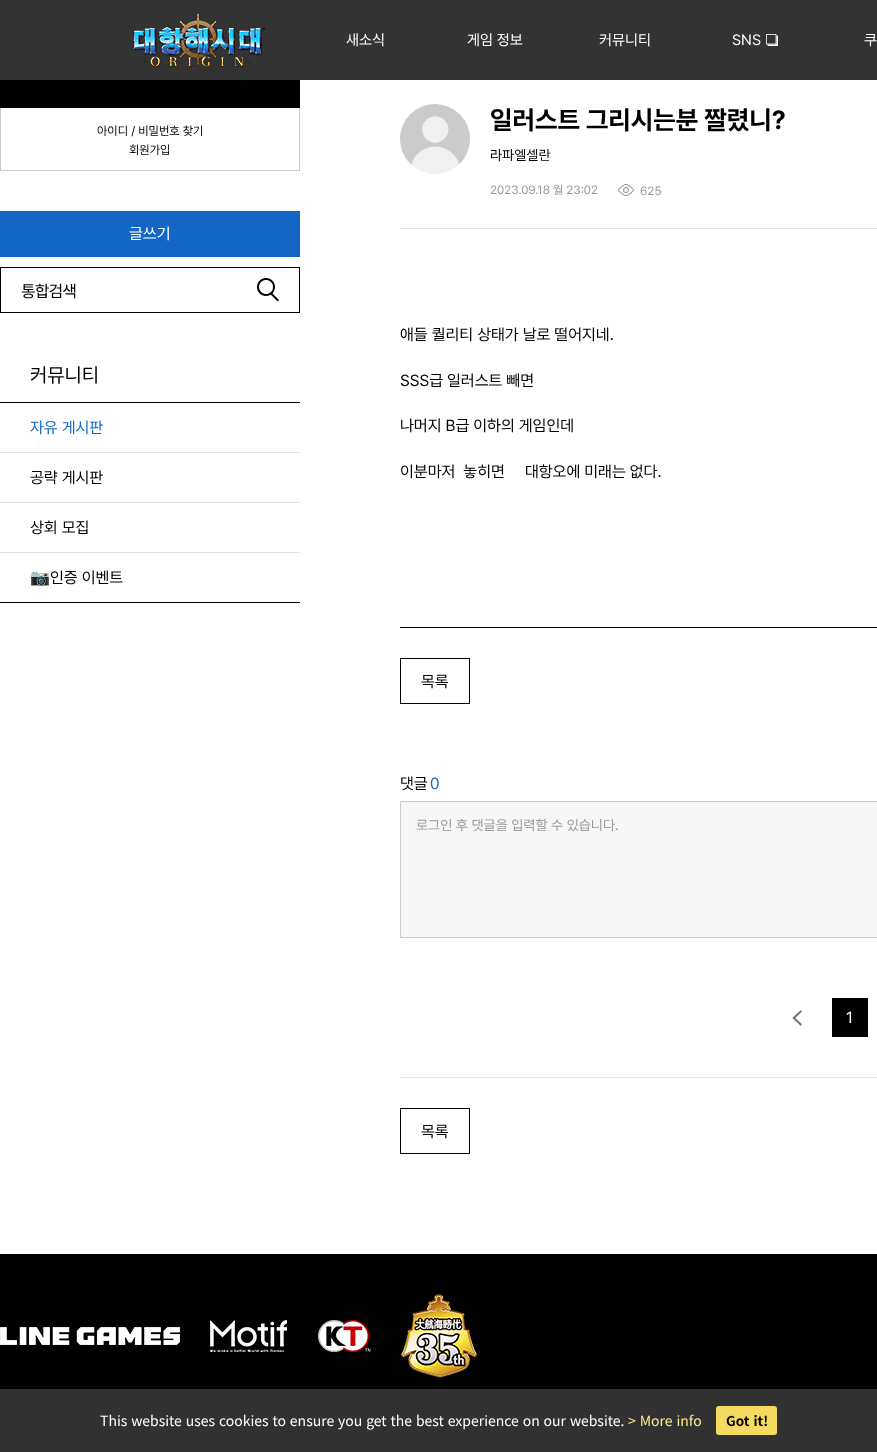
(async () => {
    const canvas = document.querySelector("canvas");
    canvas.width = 877;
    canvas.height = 1452;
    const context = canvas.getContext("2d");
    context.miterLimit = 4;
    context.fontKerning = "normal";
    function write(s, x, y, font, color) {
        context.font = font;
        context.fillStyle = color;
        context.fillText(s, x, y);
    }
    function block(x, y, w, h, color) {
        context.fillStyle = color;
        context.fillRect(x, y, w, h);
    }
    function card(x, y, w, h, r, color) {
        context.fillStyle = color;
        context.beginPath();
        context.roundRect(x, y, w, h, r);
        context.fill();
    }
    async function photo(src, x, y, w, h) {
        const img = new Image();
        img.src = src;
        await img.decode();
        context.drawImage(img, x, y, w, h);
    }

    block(0, 0, 877, 1452, "rgb(255, 255, 255)");
    block(0, 0, 877, 80, "rgb(51, 51, 51)");
    await photo("media/1.png", 133, 13, 132, 54);
    write("새소식", 346, 45, "15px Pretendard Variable", "rgb(255, 255, 255)");
    write("게임 정보", 467, 45, "15px Pretendard Variable", "rgb(255, 255, 255)");
    write("커뮤니티", 599, 45, "15px Pretendard Variable", "rgb(255, 255, 255)");
    write("SNS", 732, 45, "15px Pretendard Variable", "rgb(255, 255, 255)");
    await photo("media/2.png", 766, 34, 12, 12);
    write("쿠", 864, 45, "15px Pretendard Variable", "rgb(255, 255, 255)");
    block(0, 80, 300, 28, "rgb(0, 0, 0)");
    block(299, 108, 1, 63, "rgb(203, 203, 203)");
    block(0, 170, 300, 1, "rgb(203, 203, 203)");
    block(0, 108, 1, 63, "rgb(203, 203, 203)");
    write("아이디 / 비밀번호 찾기", 97, 135, "12px Pretendard Variable", "rgb(0, 0, 0)");
    write("회원가입", 129, 154, "12px Pretendard Variable", "rgb(0, 0, 0)");
    block(0, 211, 300, 46, "rgb(19, 102, 197)");
    write("글쓰기", 129, 239, "16px Pretendard Variable", "rgb(255, 255, 255)");
    context.strokeStyle = "rgb(0, 0, 0)";
    context.strokeRect(0.5, 267.5, 299, 45);
    context.letterSpacing = "-1px";
    write("통합검색", 21, 297, "16px Noto Sans KR", "rgb(0, 0, 0)");
    await photo("media/3.png", 257, 278, 22, 24);
    block(0, 402, 300, 1, "rgb(0, 0, 0)");
    context.letterSpacing = "0px";
    write("커뮤니티", 30, 382, "20px Pretendard Variable", "rgb(0, 0, 0)");
    block(0, 452, 300, 1, "rgb(227, 227, 227)");
    write("자유 게시판", 30, 433, "16px Pretendard Variable", "rgb(19, 102, 197)");
    block(0, 502, 300, 1, "rgb(227, 227, 227)");
    write("공략 게시판", 30, 483, "16px Pretendard Variable", "rgb(0, 0, 0)");
    block(0, 552, 300, 1, "rgb(227, 227, 227)");
    write("상회 모집", 30, 533, "16px Pretendard Variable", "rgb(0, 0, 0)");
    block(0, 602, 300, 1, "rgb(0, 0, 0)");
    write("📷", 30, 583, "16px Noto Color Emoji", "rgb(0, 0, 0)");
    write("인증 이벤트", 50, 583, "16px Pretendard Variable", "rgb(0, 0, 0)");
    await photo("media/4.png", 400, 104, 70, 70);
    write("일러스트 그리시는분 짤렸니?", 490, 129, "bold 26px Pretendard Variable", "rgb(0, 0, 0)");
    write("라파엘셀란", 490, 160, "14px Pretendard Variable", "rgb(0, 0, 0)");
    write("2023.09.18 월 23:02", 490, 194, "12px Pretendard Variable", "rgb(153, 153, 153)");
    await photo("media/5.png", 618, 184, 16, 12);
    write("625", 640, 195, "12px Pretendard Variable", "rgb(153, 153, 153)");
    block(400, 228, 477, 1, "rgb(227, 227, 227)");
    block(400, 627, 477, 1, "rgb(0, 0, 0)");
    write("애들 퀄리티 상태가 날로 떨어지네.", 400, 340, "16px Pretendard Variable", "rgb(0, 0, 0)");
    write("SSS급 일러스트 빼면", 400, 386, "16px Pretendard Variable", "rgb(0, 0, 0)");
    write("나머지 B급 이하의 게임인데", 400, 431, "16px Pretendard Variable", "rgb(0, 0, 0)");
    write("이분마저  놓히면     대항오에 미래는 없다.", 400, 477, "16px Pretendard Variable", "rgb(0, 0, 0)");
    context.strokeRect(400.5, 658.5, 69, 45);
    write("목록", 421, 687, "16px Pretendard Variable", "rgb(0, 0, 0)");
    write("댓글", 400, 789, "16px Pretendard Variable", "rgb(0, 0, 0)");
    write("0", 430, 789, "16px Pretendard Variable", "rgb(19, 102, 197)");
    context.fillStyle = "rgb(247, 247, 247)";
    context.beginPath();
    context.rect(400.5, 801.5, 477, 136);
    context.fill();
    context.strokeStyle = "rgb(203, 203, 203)";
    context.stroke();
    write("로그인 후 댓글을 입력할 수 있습니다.", 416, 830, "14px Pretendard Variable", "rgb(153, 153, 153)");
    await photo("media/6.png", 792, 1010, 10, 16);
    block(832, 998, 36, 39, "rgb(0, 0, 0)");
    write("1", 846, 1023, "16px Pretendard Variable", "rgb(255, 255, 255)");
    block(400, 1077, 477, 1, "rgb(227, 227, 227)");
    context.strokeStyle = "rgb(0, 0, 0)";
    context.strokeRect(400.5, 1108.5, 69, 45);
    write("목록", 421, 1137, "16px Pretendard Variable", "rgb(0, 0, 0)");
    block(0, 1254, 877, 135, "rgb(0, 0, 0)");
    await photo("media/7.png", 0, 1327, 180, 18);
    await photo("media/8.png", 210, 1320, 77, 32);
    await photo("media/9.png", 318, 1320, 53, 32);
    await photo("media/10.png", 401, 1294, 76, 84);
    block(0, 1389, 877, 63, "rgb(49, 49, 49)");
    context.wordSpacing = "0.75px";
    write("This website uses cookies to ensure you get the best experience on our website.", 100, 1426, "14px Noto Sans KR", "rgb(255, 255, 255)");
    write("> More info", 628, 1426, "14px Noto Sans KR", "rgb(255, 232, 140)");
    card(716, 1406, 61, 29, 3, "rgb(244, 218, 96)");
    context.wordSpacing = "1px";
    write("Got it!", 726, 1426, "bold 13.5px Noto Sans KR", "rgb(0, 0, 0)");
})();
